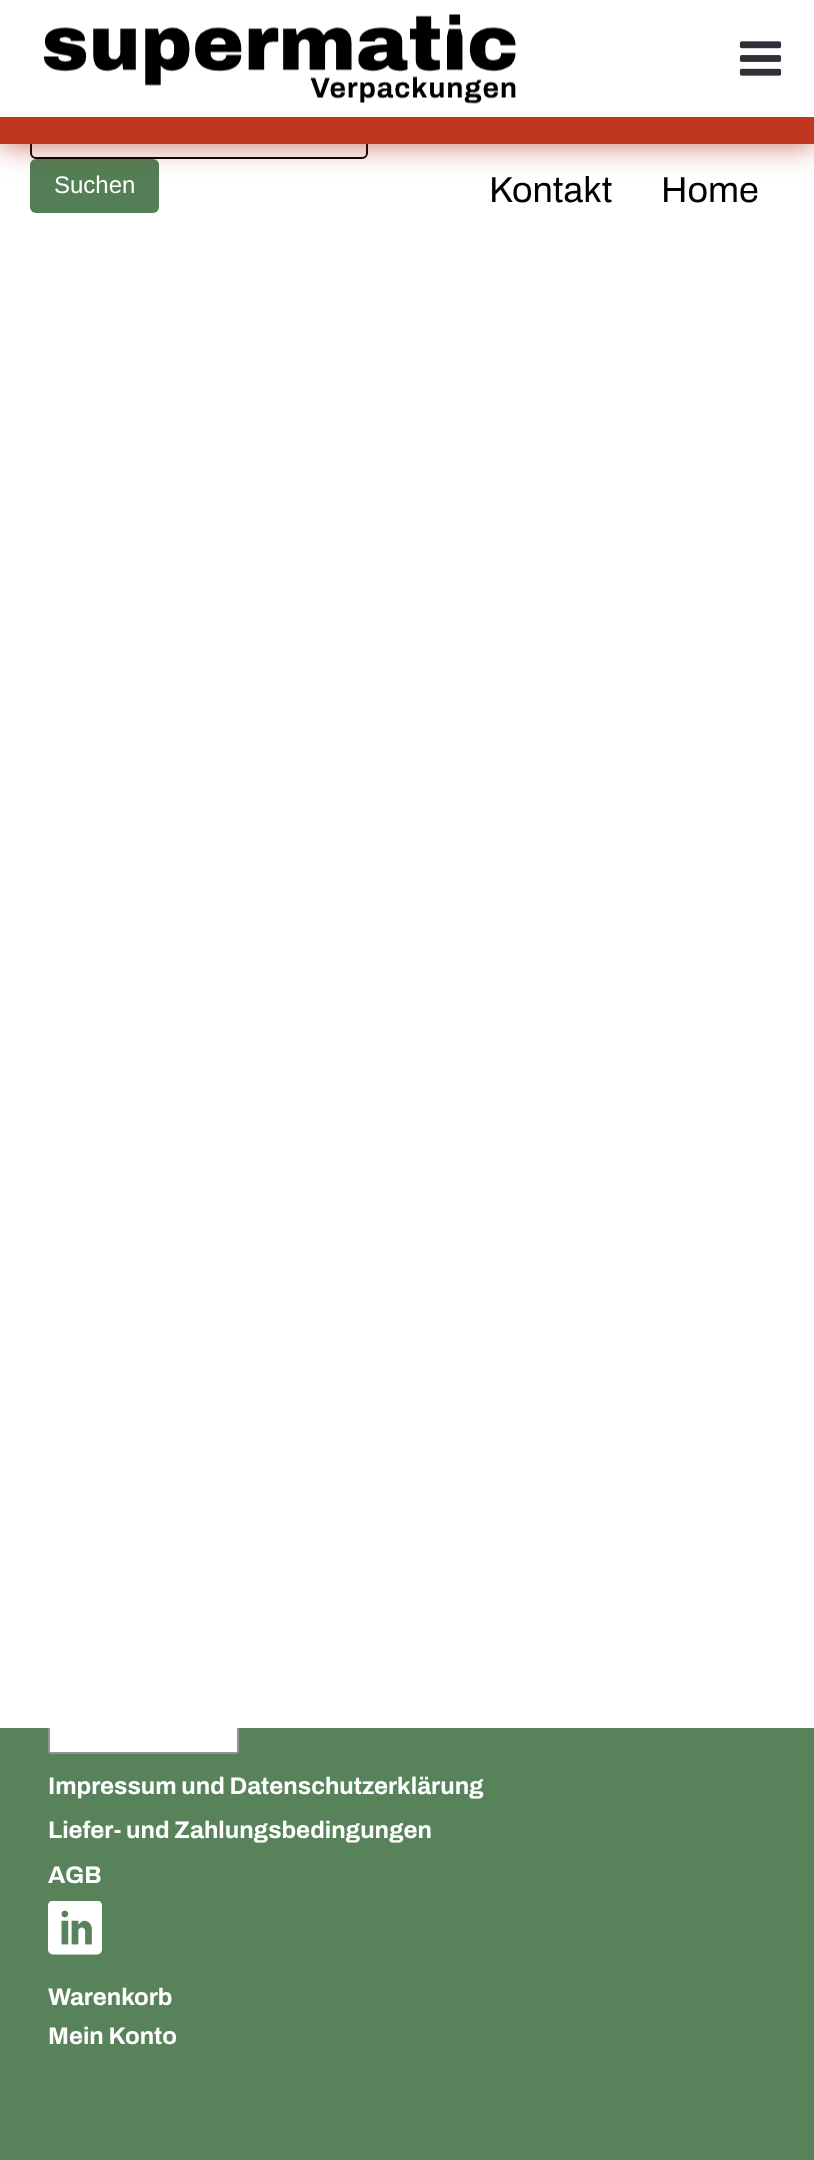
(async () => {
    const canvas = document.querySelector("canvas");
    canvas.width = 814;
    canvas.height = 2160;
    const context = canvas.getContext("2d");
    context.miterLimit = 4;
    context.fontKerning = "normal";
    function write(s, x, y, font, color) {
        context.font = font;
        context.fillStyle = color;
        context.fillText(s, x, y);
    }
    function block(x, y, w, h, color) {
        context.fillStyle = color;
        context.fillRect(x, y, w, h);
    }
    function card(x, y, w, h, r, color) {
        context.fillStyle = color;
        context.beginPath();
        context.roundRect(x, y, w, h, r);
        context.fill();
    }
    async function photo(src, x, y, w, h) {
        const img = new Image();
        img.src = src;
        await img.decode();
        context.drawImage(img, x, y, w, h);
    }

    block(0, 0, 814, 2160, "rgb(87, 130, 90)");
    context.fillStyle = "rgb(255, 255, 255)";
    context.beginPath();
    context.roundRect(49, 1681, 189, 72, 2);
    context.fill();
    context.strokeStyle = "rgb(148, 148, 148)";
    context.lineWidth = 2;
    context.stroke();
    block(0, 144, 814, 1584, "rgb(255, 255, 255)");
    context.beginPath();
    context.roundRect(31, 106, 336, 52, 5);
    context.strokeStyle = "rgb(0, 0, 0)";
    context.stroke();
    card(30, 159, 129, 54, 6, "rgb(83, 126, 86)");
    context.fillStyle = "rgba(175, 33, 10, 0.69)";
    context.filter = "blur(15px)";
    context.beginPath();
    context.rect(0, 0, 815, 144);
    context.fill();
    context.filter = "none";
    block(0, 0, 814, 117, "rgb(255, 255, 255)");
    block(0, 117, 814, 27, "rgb(192, 54, 33)");
    await photo("media/1.png", 44, 14, 472, 90);
    await photo("media/2.png", 739, 41, 43, 35);
    write("Suchen", 54, 193, "24px Liberation Sans", "rgb(255, 255, 255)");
    write("Kontakt", 489, 202, "36px Archivo", "rgb(0, 0, 0)");
    write("Home", 661, 202, "36px Archivo", "rgb(0, 0, 0)");
    write("Impressum und Datenschutzerklärung", 48, 1794, "bold 24px Archivo", "rgb(255, 255, 255)");
    write("Liefer- und Zahlungsbedingungen", 48, 1838, "bold 24px Archivo", "rgb(255, 255, 255)");
    write("AGB", 48, 1883, "bold 24px Archivo", "rgb(255, 255, 255)");
    await photo("media/3.png", 48, 1901, 54, 54);
    write("Warenkorb", 48, 2005, "bold 24px Archivo", "rgb(255, 255, 255)");
    write("Mein Konto", 48, 2044, "bold 24px Archivo", "rgb(255, 255, 255)");
})();
